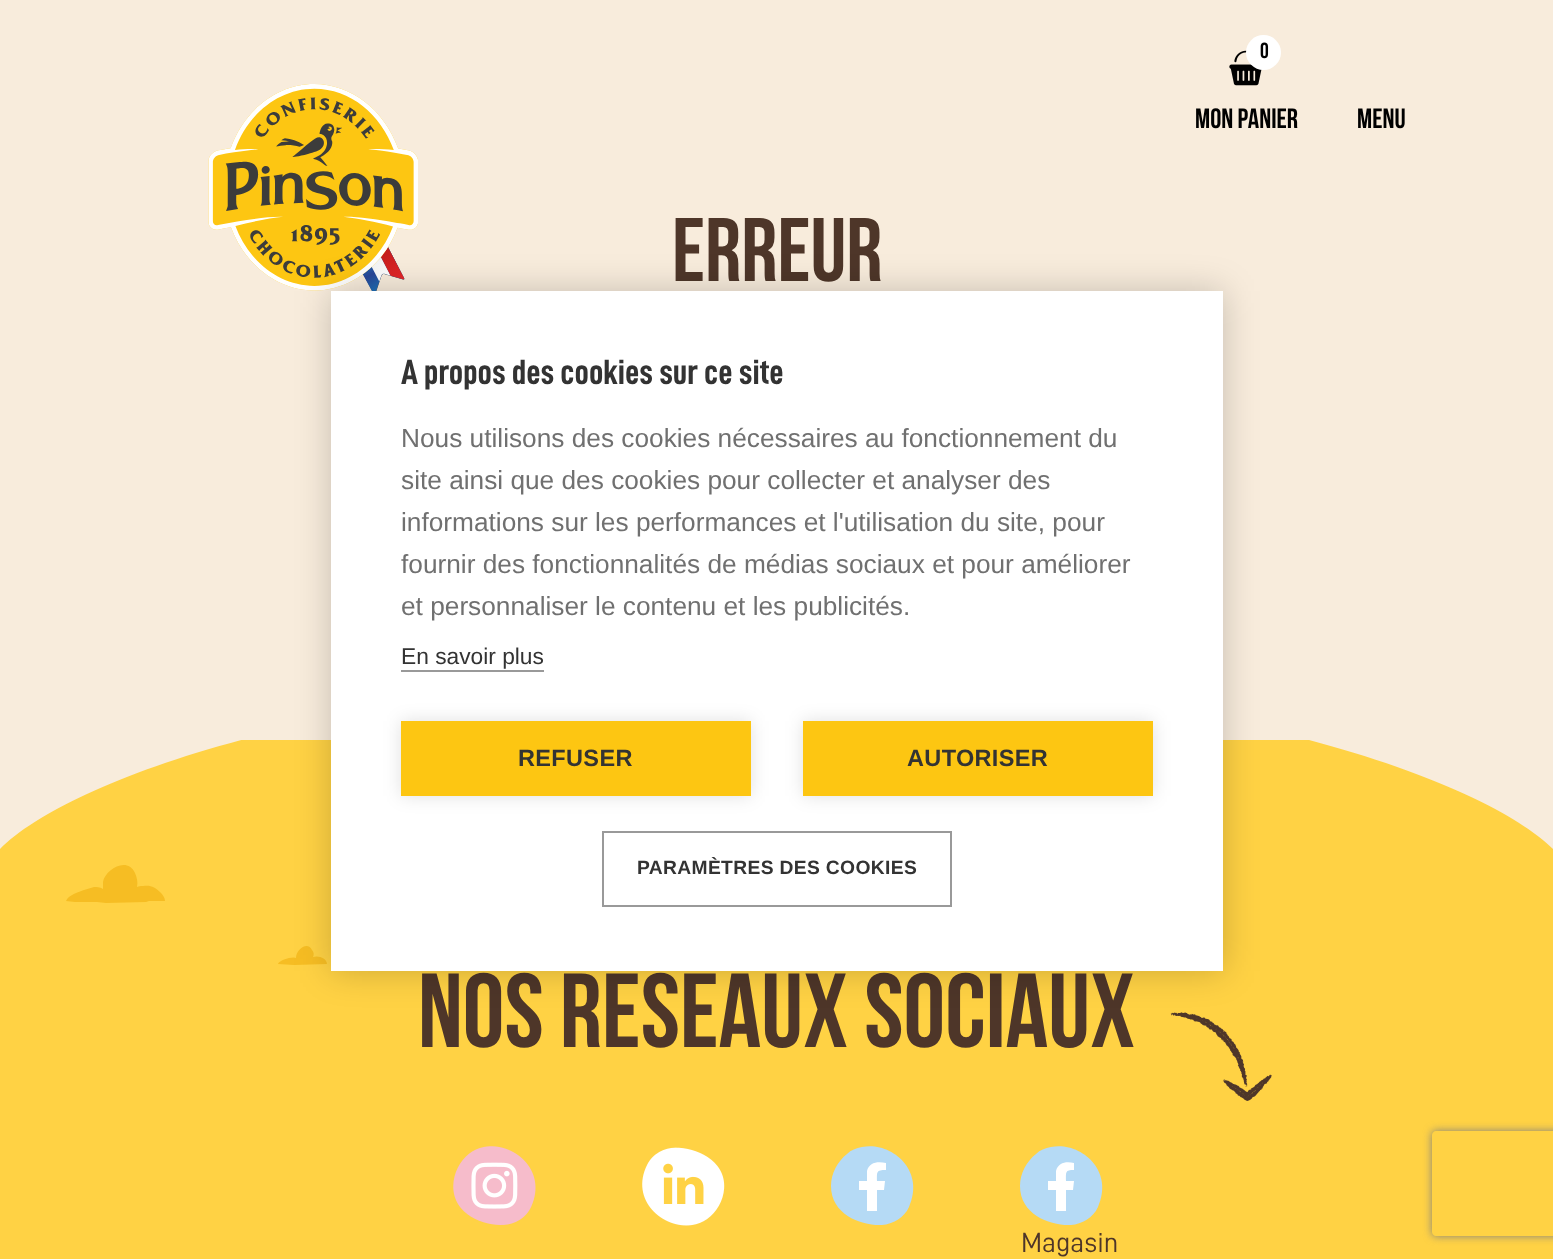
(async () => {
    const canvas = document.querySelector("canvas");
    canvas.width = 1553;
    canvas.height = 1259;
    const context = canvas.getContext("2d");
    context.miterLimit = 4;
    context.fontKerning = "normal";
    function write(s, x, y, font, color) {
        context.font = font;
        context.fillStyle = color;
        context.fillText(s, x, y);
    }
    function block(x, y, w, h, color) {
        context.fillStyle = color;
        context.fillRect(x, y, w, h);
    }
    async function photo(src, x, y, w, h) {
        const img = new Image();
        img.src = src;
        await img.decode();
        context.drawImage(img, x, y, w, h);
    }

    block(0, 0, 1553, 1259, "rgb(248, 236, 220)");
    await photo("media/1.png", 208, 84, 210, 207);
    await photo("media/2.png", 1229, 50, 33, 36);
    context.fillStyle = "rgb(255, 255, 255)";
    context.beginPath();
    context.arc(1263.5, 52.5, 17.5, 0, Math.PI * 2);
    context.fill();
    write("0", 1260, 58, "bold 22px Bebas Neue", "rgb(0, 0, 0)");
    write("MON PANIER", 1195, 128, "bold 28px Bebas Neue", "rgb(0, 0, 0)");
    write("MENU", 1357, 128, "bold 28px Bebas Neue", "rgb(0, 0, 0)");
    write("Erreur", 672, 281, "bold 90px Bebas Neue", "rgb(78, 54, 41)");
    block(0, 740, 1553, 519, "rgb(255, 210, 68)");
    context.save();
    context.beginPath();
    context.rect(0, 740, 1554, 111);
    context.clip();
    context.fillStyle = "rgb(248, 236, 220)";
    context.beginPath();
    context.moveTo(0, 849);
    context.bezierCurveTo(72, 777, 348, 678, 777, 678);
    context.bezierCurveTo(1206, 678, 1484, 780, 1553, 849);
    context.lineTo(1553, 600);
    context.lineTo(0, 600);
    context.closePath();
    context.fill();
    context.restore();
    context.fillStyle = "rgb(246, 189, 35)";
    context.beginPath();
    context.moveTo(66, 901);
    context.lineTo(75, 902);
    context.bezierCurveTo(82, 902, 90, 902, 97, 902);
    context.lineTo(106, 903);
    context.lineTo(146, 902);
    context.lineTo(149, 901);
    context.lineTo(165, 901);
    context.bezierCurveTo(165, 898, 163, 895, 161, 893);
    context.bezierCurveTo(155, 887, 151, 885, 143, 886);
    context.bezierCurveTo(140, 886, 139, 886, 137, 887);
    context.bezierCurveTo(138, 882, 137, 878, 135, 873);
    context.bezierCurveTo(127, 856, 105, 870, 103, 882);
    context.lineTo(103, 889);
    context.bezierCurveTo(100, 887, 96, 887, 94, 887);
    context.lineTo(84, 890);
    context.bezierCurveTo(79, 892, 68, 895, 66, 901);
    context.closePath();
    context.fill();
    context.beginPath();
    context.moveTo(278, 964);
    context.lineTo(294, 965);
    context.lineTo(327, 964);
    context.bezierCurveTo(327, 958, 318, 955, 313, 957);
    context.bezierCurveTo(314, 955, 314, 952, 312, 950);
    context.bezierCurveTo(308, 941, 296, 949, 296, 958);
    context.bezierCurveTo(293, 956, 279, 960, 278, 964);
    context.closePath();
    context.fill();
    write("Nos réseaux sociaux", 418, 1047, "bold 105px Bebas Neue", "rgb(78, 54, 41)");
    await photo("media/3.png", 1170, 1012, 102, 89);
    await photo("media/4.png", 453, 1146, 83, 79);
    await photo("media/5.png", 642, 1147, 83, 79);
    context.fillStyle = "rgb(181, 218, 245)";
    context.beginPath();
    context.moveTo(862, 1147);
    context.bezierCurveTo(856, 1148, 851, 1150, 847, 1154);
    context.bezierCurveTo(838, 1161, 831, 1173, 831, 1186);
    context.bezierCurveTo(831, 1215, 862, 1226, 882, 1225);
    context.bezierCurveTo(893, 1224, 904, 1218, 909, 1207);
    context.bezierCurveTo(926, 1169, 890, 1141, 862, 1147);
    context.closePath();
    context.fill();
    context.fillStyle = "rgb(255, 255, 255)";
    context.beginPath();
    context.moveTo(867, 1211);
    context.lineTo(867, 1190);
    context.lineTo(859, 1190);
    context.lineTo(859, 1181);
    context.lineTo(867, 1181);
    context.lineTo(867, 1171);
    context.bezierCurveTo(869, 1162, 878, 1161, 886, 1163);
    context.lineTo(886, 1170);
    context.bezierCurveTo(876, 1170, 877, 1172, 877, 1181);
    context.lineTo(885, 1181);
    context.lineTo(884, 1190);
    context.lineTo(877, 1190);
    context.lineTo(877, 1211);
    context.closePath();
    context.fill();
    context.fillStyle = "rgb(181, 218, 245)";
    context.beginPath();
    context.moveTo(1051, 1147);
    context.bezierCurveTo(1045, 1148, 1040, 1150, 1036, 1154);
    context.bezierCurveTo(1027, 1161, 1020, 1173, 1020, 1186);
    context.bezierCurveTo(1020, 1215, 1051, 1226, 1071, 1225);
    context.bezierCurveTo(1082, 1224, 1093, 1218, 1098, 1207);
    context.bezierCurveTo(1115, 1169, 1079, 1141, 1051, 1147);
    context.closePath();
    context.fill();
    context.fillStyle = "rgb(255, 255, 255)";
    context.beginPath();
    context.moveTo(1056, 1211);
    context.lineTo(1056, 1190);
    context.lineTo(1048, 1190);
    context.lineTo(1048, 1181);
    context.lineTo(1056, 1181);
    context.lineTo(1056, 1171);
    context.bezierCurveTo(1058, 1162, 1067, 1161, 1074, 1163);
    context.lineTo(1074, 1170);
    context.bezierCurveTo(1065, 1170, 1066, 1172, 1066, 1181);
    context.lineTo(1074, 1181);
    context.lineTo(1073, 1190);
    context.lineTo(1066, 1190);
    context.lineTo(1066, 1211);
    context.closePath();
    context.fill();
    write("Magasin", 1021, 1252, "28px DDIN", "rgb(78, 54, 41)");
    context.fillStyle = "rgba(0, 0, 0, 0.2)";
    context.filter = "blur(17.5px)";
    context.beginPath();
    context.rect(331, 291, 892, 680);
    context.fill();
    context.filter = "none";
    block(331, 291, 892, 680, "rgb(255, 255, 255)");
    write("A propos des cookies sur ce site", 401, 384, "bold 35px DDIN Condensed", "rgb(51, 51, 51)");
    write("Nous utilisons des cookies nécessaires au fonctionnement du", 401, 447, "26.25px Liberation Sans", "rgb(112, 112, 112)");
    write("site ainsi que des cookies pour collecter et analyser des", 401, 489, "26.25px Liberation Sans", "rgb(112, 112, 112)");
    write("informations sur les performances et l'utilisation du site, pour", 401, 531, "26.25px Liberation Sans", "rgb(112, 112, 112)");
    write("fournir des fonctionnalités de médias sociaux et pour améliorer", 401, 573, "26.25px Liberation Sans", "rgb(112, 112, 112)");
    write("et personnaliser le contenu et les publicités.", 401, 615, "26.25px Liberation Sans", "rgb(112, 112, 112)");
    write("En savoir plus", 401, 664, "22.75px Liberation Sans", "rgb(51, 51, 51)");
    block(401, 670, 143, 2, "rgb(153, 153, 153)");
    context.fillStyle = "rgba(0, 0, 0, 0.12)";
    context.filter = "blur(9px)";
    context.beginPath();
    context.rect(401, 721, 350, 75);
    context.fill();
    context.filter = "none";
    block(401, 721, 350, 75, "rgb(253, 198, 18)");
    context.letterSpacing = "0.35px";
    write("REFUSER", 518, 766, "bold 23.5px Liberation Sans", "rgb(51, 51, 51)");
    context.fillStyle = "rgba(0, 0, 0, 0.12)";
    context.filter = "blur(9px)";
    context.beginPath();
    context.rect(803, 721, 350, 75);
    context.fill();
    context.filter = "none";
    block(803, 721, 350, 75, "rgb(253, 198, 18)");
    write("AUTORISER", 907, 766, "bold 23.5px Liberation Sans", "rgb(51, 51, 51)");
    context.strokeStyle = "rgb(153, 153, 153)";
    context.lineWidth = 2;
    context.strokeRect(603, 832, 348, 74);
    write("PARAMÈTRES DES COOKIES", 637, 874, "bold 19.25px Liberation Sans", "rgb(51, 51, 51)");
    context.save();
    context.beginPath();
    context.moveTo(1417, 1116);
    context.lineTo(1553, 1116);
    context.lineTo(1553, 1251);
    context.lineTo(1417, 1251);
    context.closePath();
    context.moveTo(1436, 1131);
    context.lineTo(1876, 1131);
    context.bezierCurveTo(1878, 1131, 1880, 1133, 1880, 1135);
    context.lineTo(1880, 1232);
    context.bezierCurveTo(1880, 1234, 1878, 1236, 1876, 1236);
    context.lineTo(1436, 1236);
    context.bezierCurveTo(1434, 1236, 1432, 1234, 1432, 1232);
    context.lineTo(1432, 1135);
    context.bezierCurveTo(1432, 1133, 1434, 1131, 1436, 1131);
    context.closePath();
    context.clip("evenodd");
    context.fillStyle = "rgb(128, 128, 128)";
    context.filter = "blur(4.5px)";
    context.beginPath();
    context.roundRect(1432, 1131, 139, 105, 4);
    context.fill();
    context.filter = "none";
    context.restore();
})();
